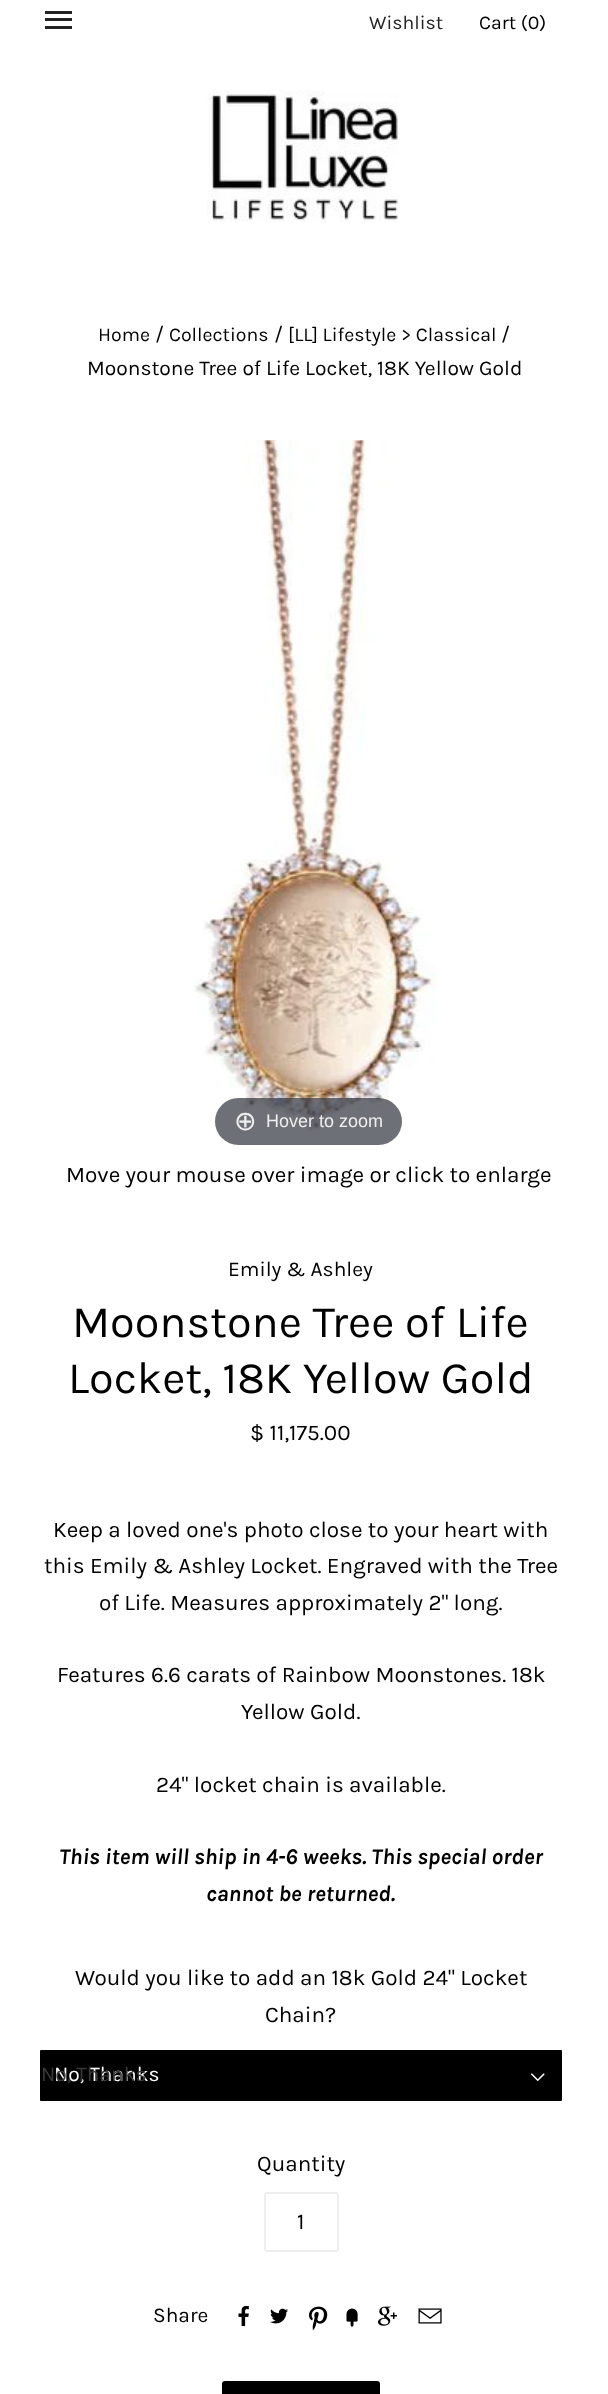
(async () => {
    const canvas = document.querySelector("canvas");
    canvas.width = 608;
    canvas.height = 2394;
    const context = canvas.getContext("2d");
    context.miterLimit = 4;
    context.fontKerning = "normal";
    function write(s, x, y, font, color) {
        context.font = font;
        context.fillStyle = color;
        context.fillText(s, x, y);
    }
    function block(x, y, w, h, color) {
        context.fillStyle = color;
        context.fillRect(x, y, w, h);
    }
    function card(x, y, w, h, r, color) {
        context.fillStyle = color;
        context.beginPath();
        context.roundRect(x, y, w, h, r);
        context.fill();
    }
    async function photo(src, x, y, w, h) {
        const img = new Image();
        img.src = src;
        await img.decode();
        context.drawImage(img, x, y, w, h);
    }

    block(0, 0, 608, 2394, "rgb(255, 255, 255)");
    block(45, 18, 27, 3, "rgb(36, 36, 36)");
    block(45, 11, 27, 3, "rgb(36, 36, 36)");
    block(45, 26, 27, 3, "rgb(36, 36, 36)");
    write("Wishlist", 369, 29, "19.5px Karla", "rgb(36, 36, 36)");
    write("Cart (0)", 479, 29, "19.5px Karla", "rgb(0, 0, 0)");
    await photo("media/1.png", 207, 90, 192, 132);
    write("Home", 98, 341, "19.5px Karla", "rgb(0, 0, 0)");
    write("/", 155, 341, "21px Karla", "rgb(0, 0, 0)");
    write("Collections", 169, 341, "19.5px Karla", "rgb(0, 0, 0)");
    write("/", 274, 341, "21px Karla", "rgb(0, 0, 0)");
    write("[LL] Lifestyle > Classical", 288, 341, "19.5px Karla", "rgb(0, 0, 0)");
    write("/", 501, 341, "21px Karla", "rgb(0, 0, 0)");
    write("Moonstone Tree of Life Locket, 18K Yellow Gold", 87, 375, "21px Karla", "rgb(0, 0, 0)");
    await photo("media/2.png", 193, 440, 244, 693);
    card(215, 1098, 187, 47, 23.5, "rgba(49, 51, 61, 0.7)");
    write("⊕", 234, 1130, "27px DejaVu Sans", "rgb(238, 238, 238)");
    write("Hover to zoom", 266, 1127, "18px Liberation Sans", "rgb(238, 238, 238)");
    write("Move your mouse over image or click to enlarge", 66, 1182, "22.5px Karla", "rgb(0, 0, 0)");
    write("Emily & Ashley", 228, 1276, "21px Karla", "rgb(0, 0, 0)");
    write("Moonstone Tree of Life", 72, 1337, "45px Karla", "rgb(0, 0, 0)");
    write("Locket, 18K Yellow Gold", 68, 1393, "45px Karla", "rgb(0, 0, 0)");
    write("$ 11,175.00", 250, 1440, "22.5px Karla", "rgb(0, 0, 0)");
    write("Keep a loved one's photo close to your heart with", 53, 1537, "22.5px Karla", "rgb(0, 0, 0)");
    write("this Emily & Ashley Locket. Engraved with the Tree", 44, 1573, "22.5px Karla", "rgb(0, 0, 0)");
    write("of Life. Measures approximately 2\" long.", 99, 1610, "22.5px Karla", "rgb(0, 0, 0)");
    write("Features 6.6 carats of Rainbow Moonstones. 18k", 57, 1682, "22.5px Karla", "rgb(0, 0, 0)");
    write("Yellow Gold.", 241, 1719, "22.5px Karla", "rgb(0, 0, 0)");
    write("24\" locket chain is available.", 156, 1792, "22.5px Karla", "rgb(0, 0, 0)");
    write("This item will ship in 4-6 weeks. This special order", 59, 1864, "italic bold 22.5px Karla", "rgb(0, 0, 0)");
    write("cannot be returned.", 206, 1901, "italic bold 22.5px Karla", "rgb(0, 0, 0)");
    write("Would you like to add an 18k Gold 24\" Locket", 75, 1985, "22.5px Karla", "rgb(0, 0, 0)");
    write("Chain?", 265, 2022, "22.5px Karla", "rgb(0, 0, 0)");
    context.beginPath();
    context.roundRect(39, 2049, 524, 53, 2);
    context.fill();
    context.strokeStyle = "rgb(255, 255, 255)";
    context.lineWidth = 2;
    context.stroke();
    write("No, Thanks", 54, 2081, "21px Karla", "rgb(255, 255, 255)");
    write("No, Thanks", 41, 2081, "21px Karla", "rgb(57, 57, 57)");
    await photo("media/3.png", 531, 2073, 14, 8);
    write("Quantity", 257, 2171, "22.5px Karla", "rgb(0, 0, 0)");
    context.beginPath();
    context.roundRect(265, 2193, 73, 58, 2);
    context.strokeStyle = "rgb(238, 238, 238)";
    context.stroke();
    write("1", 297, 2229, "22.5px Karla", "rgb(0, 0, 0)");
    write("Share", 153, 2322, "21px Karla", "rgb(0, 0, 0)");
    await photo("media/4.png", 238, 2305, 11, 22);
    await photo("media/5.png", 270, 2308, 18, 16);
    await photo("media/6.png", 309, 2306, 19, 25);
    await photo("media/7.png", 346, 2308, 12, 19);
    await photo("media/8.png", 378, 2306, 19, 20);
    await photo("media/9.png", 418, 2308, 24, 16);
    card(222, 2381, 158, 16, 3, "rgb(0, 0, 0)");
})();
